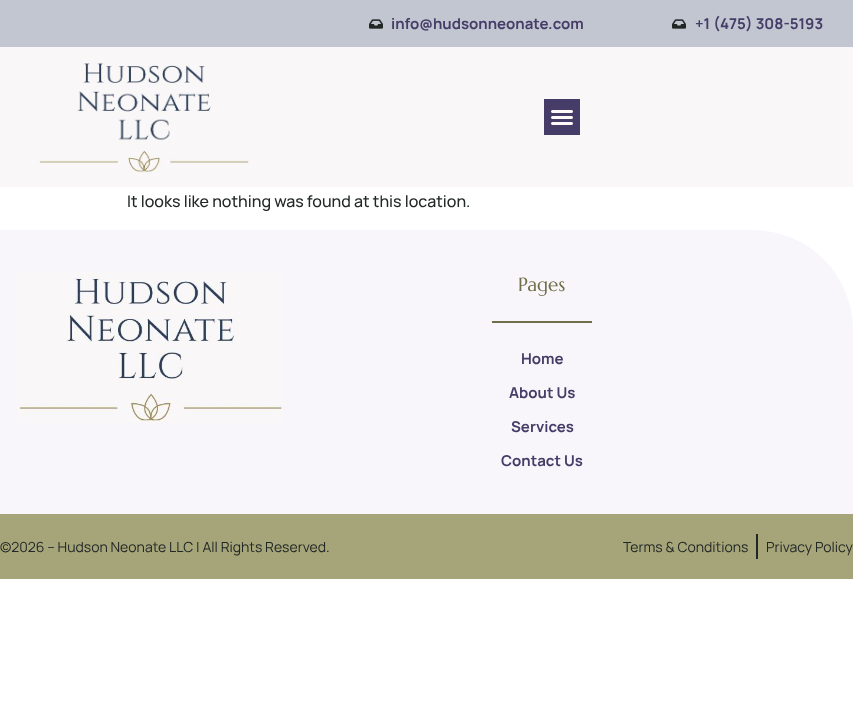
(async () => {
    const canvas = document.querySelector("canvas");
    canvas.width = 853;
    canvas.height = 722;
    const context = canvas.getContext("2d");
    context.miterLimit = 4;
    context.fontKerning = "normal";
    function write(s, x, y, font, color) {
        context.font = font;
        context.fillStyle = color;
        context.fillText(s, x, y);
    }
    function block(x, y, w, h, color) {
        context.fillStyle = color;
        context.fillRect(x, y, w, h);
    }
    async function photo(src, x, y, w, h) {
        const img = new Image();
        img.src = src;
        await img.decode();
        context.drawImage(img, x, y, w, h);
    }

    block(0, 0, 853, 722, "rgb(255, 255, 255)");
    block(0, 0, 853, 47, "rgb(193, 198, 209)");
    await photo("media/1.png", 369, 19, 14, 10);
    write("info@hudsonneonate.com", 391, 29, "bold 15px Manrope", "rgb(69, 60, 103)");
    await photo("media/1.png", 672, 19, 14, 10);
    write("+1 (475) 308-5193", 695, 29, "bold 15px Manrope", "rgb(69, 60, 103)");
    block(0, 47, 853, 140, "rgb(249, 247, 248)");
    await photo("media/2.png", 38, 61, 211, 112);
    block(544, 99, 36, 36, "rgb(69, 60, 103)");
    await photo("media/3.png", 551, 110, 22, 15);
    write("It looks like nothing was found at this location.", 127, 207, "500 16px Manrope", "rgb(33, 39, 37)");
    context.fillStyle = "rgb(248, 246, 250)";
    context.beginPath();
    context.roundRect(0, 230, 853, 284, [0, 100, 0, 0]);
    context.fill();
    await photo("media/4.png", 17, 272, 266, 151);
    write("Pages", 518, 291, "19px Marcellus", "rgb(110, 110, 73)");
    block(492, 321, 100, 2, "rgb(110, 110, 73)");
    write("Home", 521, 364, "bold 15px Manrope", "rgb(69, 60, 103)");
    write("About Us", 509, 398, "bold 15px Manrope", "rgb(69, 60, 103)");
    write("Services", 511, 432, "bold 15px Manrope", "rgb(69, 60, 103)");
    write("Contact Us", 501, 466, "bold 15px Manrope", "rgb(69, 60, 103)");
    block(0, 514, 853, 65, "rgb(166, 165, 122)");
    write("©2026 – Hudson Neonate LLC | All Rights Reserved.", 0, 552, "14px Manrope", "rgb(33, 39, 37)");
    write("Terms & Conditions", 623, 552, "14px Manrope", "rgb(33, 39, 37)");
    block(756, 534, 2, 25, "rgb(33, 39, 37)");
    write("Privacy Policy", 766, 552, "14px Manrope", "rgb(33, 39, 37)");
})();
